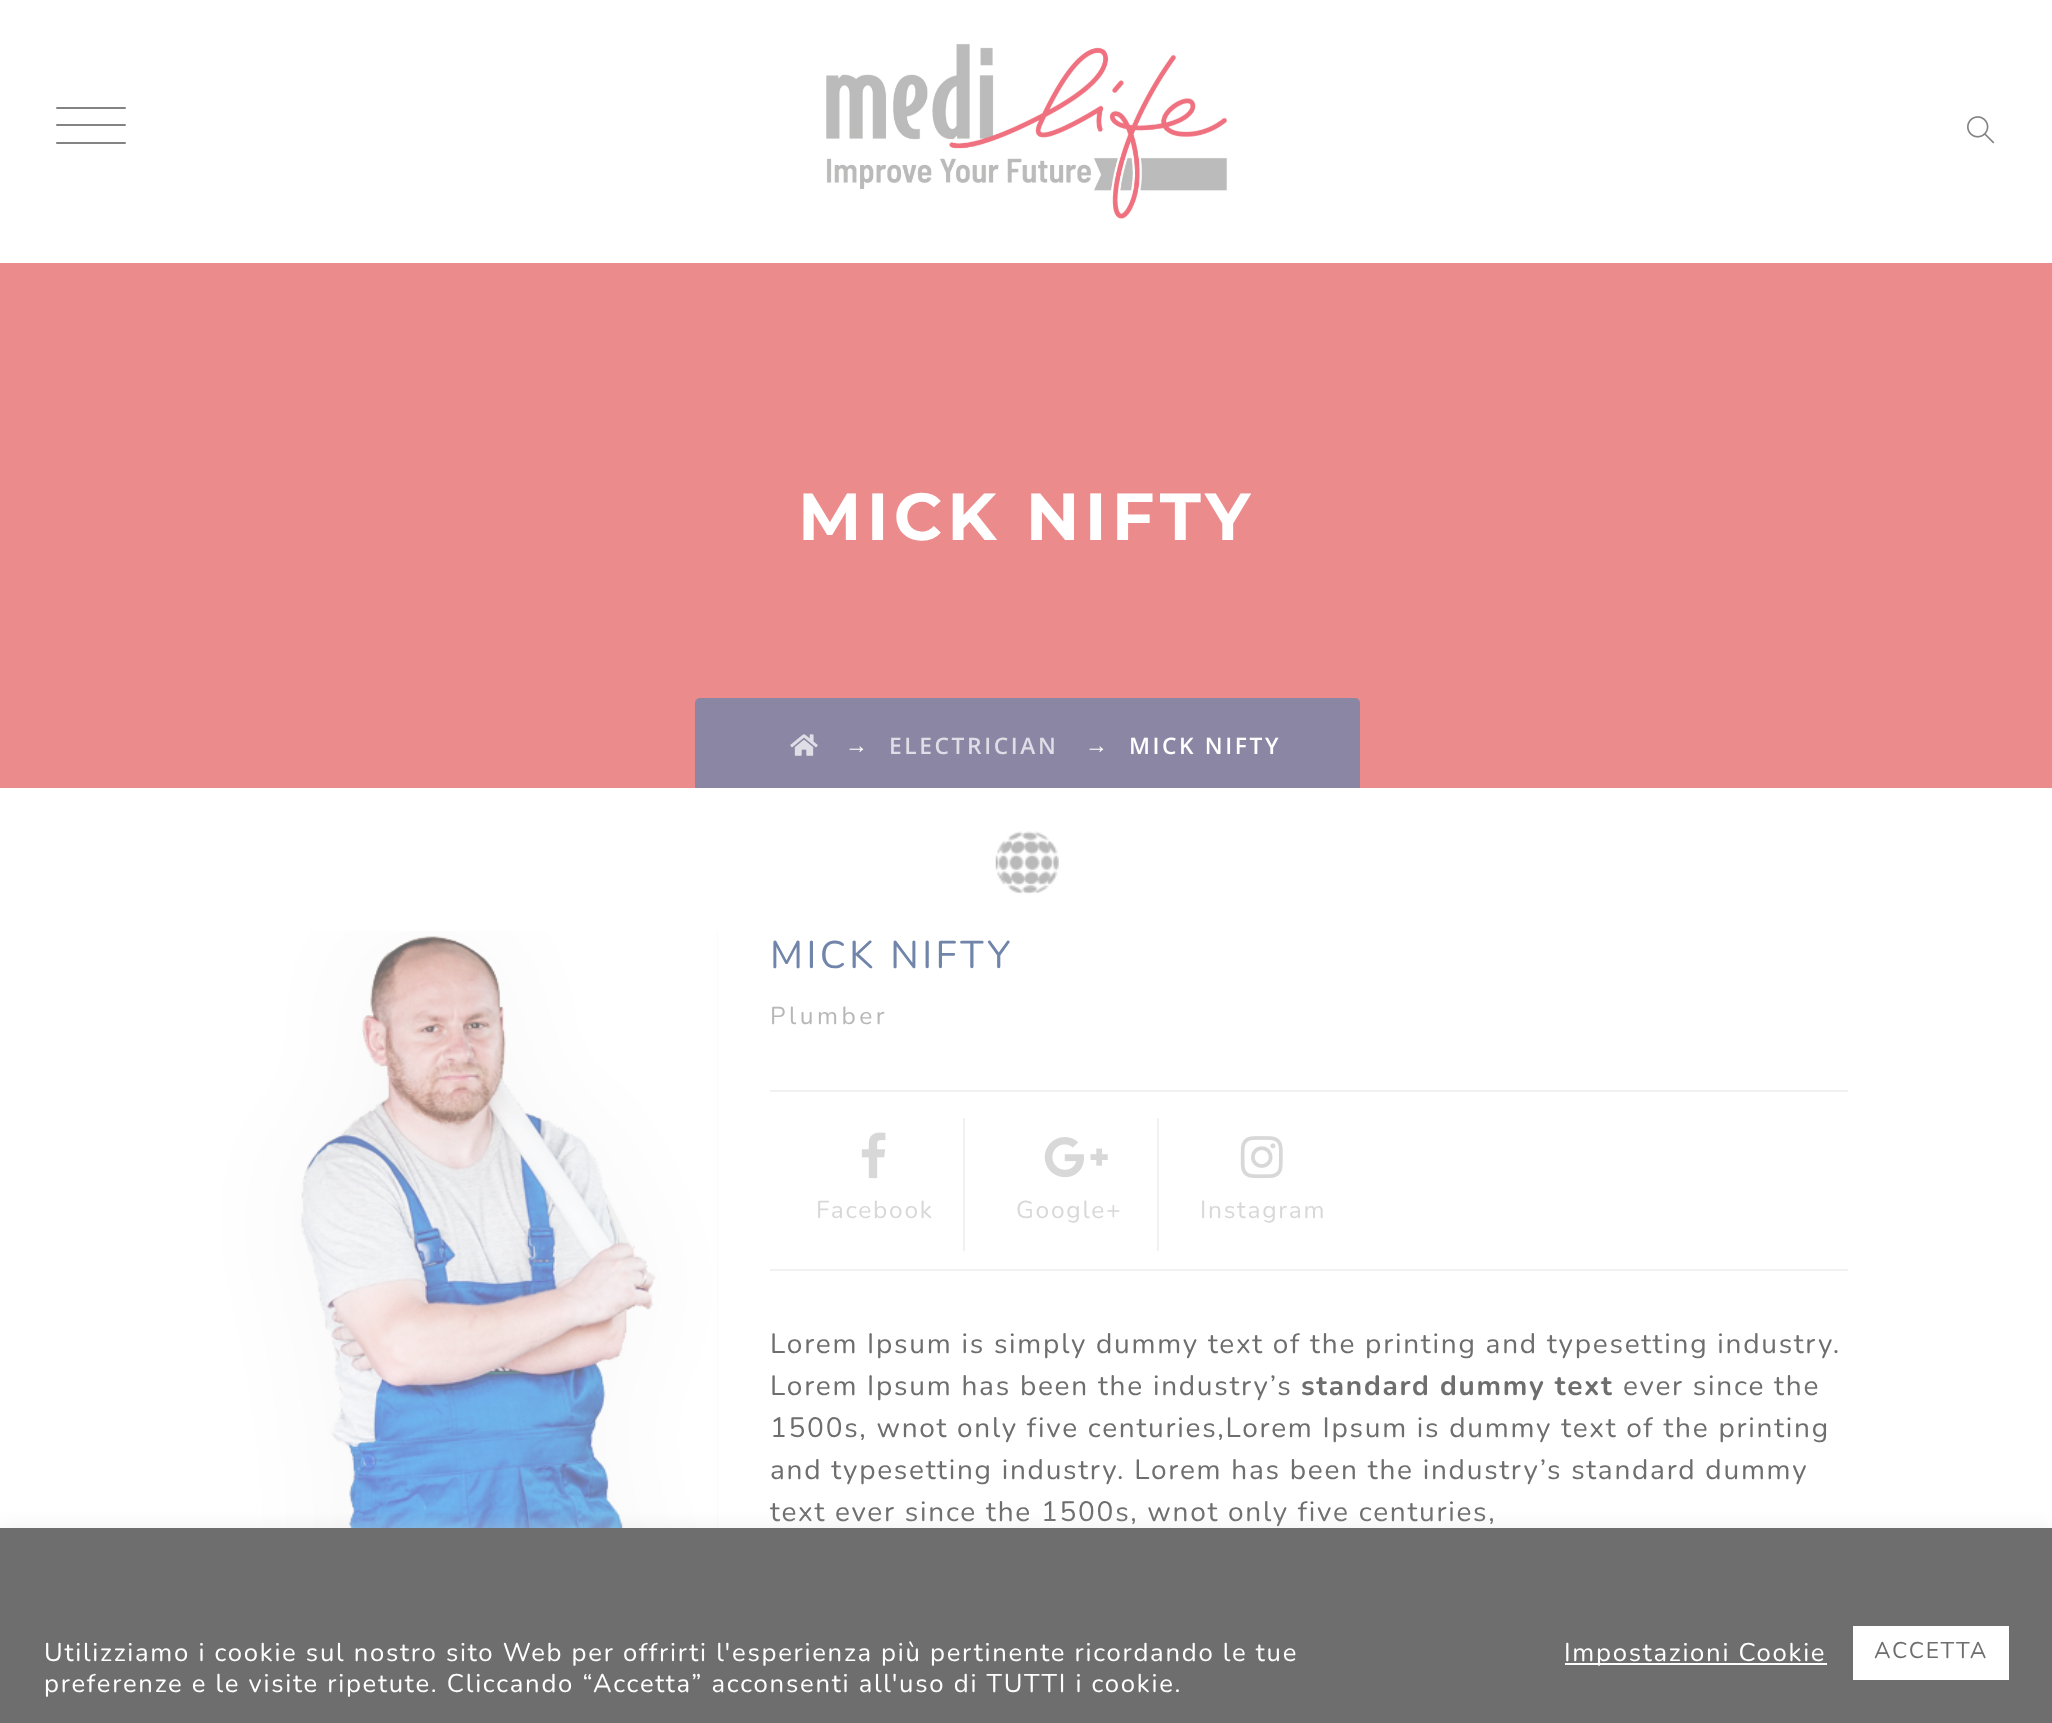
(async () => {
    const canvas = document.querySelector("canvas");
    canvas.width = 2052;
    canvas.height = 1723;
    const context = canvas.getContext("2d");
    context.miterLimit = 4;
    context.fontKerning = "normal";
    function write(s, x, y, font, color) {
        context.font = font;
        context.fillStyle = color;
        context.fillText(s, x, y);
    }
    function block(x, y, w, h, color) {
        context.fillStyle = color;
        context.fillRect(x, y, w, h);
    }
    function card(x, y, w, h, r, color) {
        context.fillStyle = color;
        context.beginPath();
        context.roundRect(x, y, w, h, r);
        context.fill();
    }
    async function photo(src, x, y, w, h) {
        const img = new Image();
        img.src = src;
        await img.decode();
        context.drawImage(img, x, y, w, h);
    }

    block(0, 0, 2052, 1723, "rgb(255, 255, 255)");
    await photo("media/1.png", 826, 43, 402, 176);
    card(56, 124, 70, 2, 1, "rgb(131, 131, 131)");
    card(56, 107, 70, 2, 1, "rgb(131, 131, 131)");
    card(56, 142, 70, 2, 1, "rgb(131, 131, 131)");
    await photo("media/2.png", 1967, 116, 28, 28);
    block(0, 263, 2052, 525, "rgb(236, 139, 139)");
    context.letterSpacing = "5.25px";
    write("MICK NIFTY", 798, 540, "bold 66.5px Montserrat", "rgb(255, 255, 255)");
    context.fillStyle = "rgb(139, 134, 164)";
    context.beginPath();
    context.roundRect(695, 698, 665, 90, [5, 5, 0, 0]);
    context.fill();
    await photo("media/3.png", 790, 734, 28, 22);
    context.letterSpacing = "2.6px";
    write("→", 845, 753, "bold 22.75px Liberation Sans", "rgb(255, 255, 255)");
    write("ELECTRICIAN", 889, 754, "600 22.75px Open Sans", "rgb(223, 221, 229)");
    write("→", 1085, 753, "bold 22.75px Liberation Sans", "rgb(255, 255, 255)");
    write("MICK NIFTY", 1129, 754, "600 22.75px Open Sans", "rgb(255, 255, 255)");
    block(717, 931, 1, 597, "rgb(250, 250, 250)");
    await photo("media/4.png", 205, 931, 512, 597);
    context.letterSpacing = "3.5px";
    write("MICK NIFTY", 770, 968, "38.5px Nunito", "rgb(113, 132, 170)");
    write("Plumber", 770, 1024, "24.5px Nunito", "rgb(183, 183, 183)");
    block(770, 1090, 1078, 2, "rgb(241, 241, 241)");
    block(770, 1269, 1078, 2, "rgb(241, 241, 241)");
    block(963, 1118, 2, 133, "rgb(241, 241, 241)");
    await photo("media/5.png", 861, 1132, 25, 47);
    context.letterSpacing = "1.75px";
    write("Facebook", 816, 1218, "24.5px Nunito", "rgb(216, 216, 216)");
    block(1157, 1118, 2, 133, "rgb(241, 241, 241)");
    await photo("media/6.png", 1044, 1137, 64, 41);
    write("Google+", 1016, 1218, "24.5px Nunito", "rgb(216, 216, 216)");
    await photo("media/7.png", 1240, 1136, 43, 43);
    write("Instagram", 1200, 1218, "24.5px Nunito", "rgb(216, 216, 216)");
    write("Lorem Ipsum is simply dummy text of the printing and typesetting industry.", 770, 1353, "28px Nunito", "rgb(110, 110, 110)");
    write("Lorem Ipsum has been the industry’s", 770, 1395, "28px Nunito", "rgb(110, 110, 110)");
    write("standard dummy text", 1301, 1395, "bold 28px Nunito", "rgb(110, 110, 110)");
    write("ever since the", 1623, 1395, "28px Nunito", "rgb(110, 110, 110)");
    write("1500s, wnot only five centuries,Lorem Ipsum is dummy text of the printing", 770, 1437, "28px Nunito", "rgb(110, 110, 110)");
    write("and typesetting industry. Lorem has been the industry’s standard dummy", 770, 1479, "28px Nunito", "rgb(110, 110, 110)");
    write("text ever since the 1500s, wnot only five centuries,", 770, 1521, "28px Nunito", "rgb(110, 110, 110)");
    await photo("media/8.png", 995, 831, 64, 63);
    context.fillStyle = "rgba(208, 207, 207, 0.3)";
    context.filter = "blur(9px)";
    context.beginPath();
    context.rect(0, 1526, 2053, 196);
    context.fill();
    context.filter = "none";
    block(0, 1528, 2052, 195, "rgb(110, 110, 110)");
    write("Utilizziamo i cookie sul nostro sito Web per offrirti l'esperienza più pertinente ricordando le tue", 44, 1661, "25.65px Nunito", "rgb(255, 255, 255)");
    write("preferenze e le visite ripetute. Cliccando “Accetta” acconsenti all'uso di TUTTI i cookie.", 44, 1692, "25.65px Nunito", "rgb(255, 255, 255)");
    block(1565, 1663, 262, 2, "rgb(255, 255, 255)");
    write("Impostazioni Cookie", 1564, 1661, "25.65px Nunito", "rgb(255, 255, 255)");
    block(1853, 1626, 156, 54, "rgb(255, 255, 255)");
    write("ACCETTA", 1874, 1658, "22.75px Nunito", "rgb(110, 110, 110)");
})();
